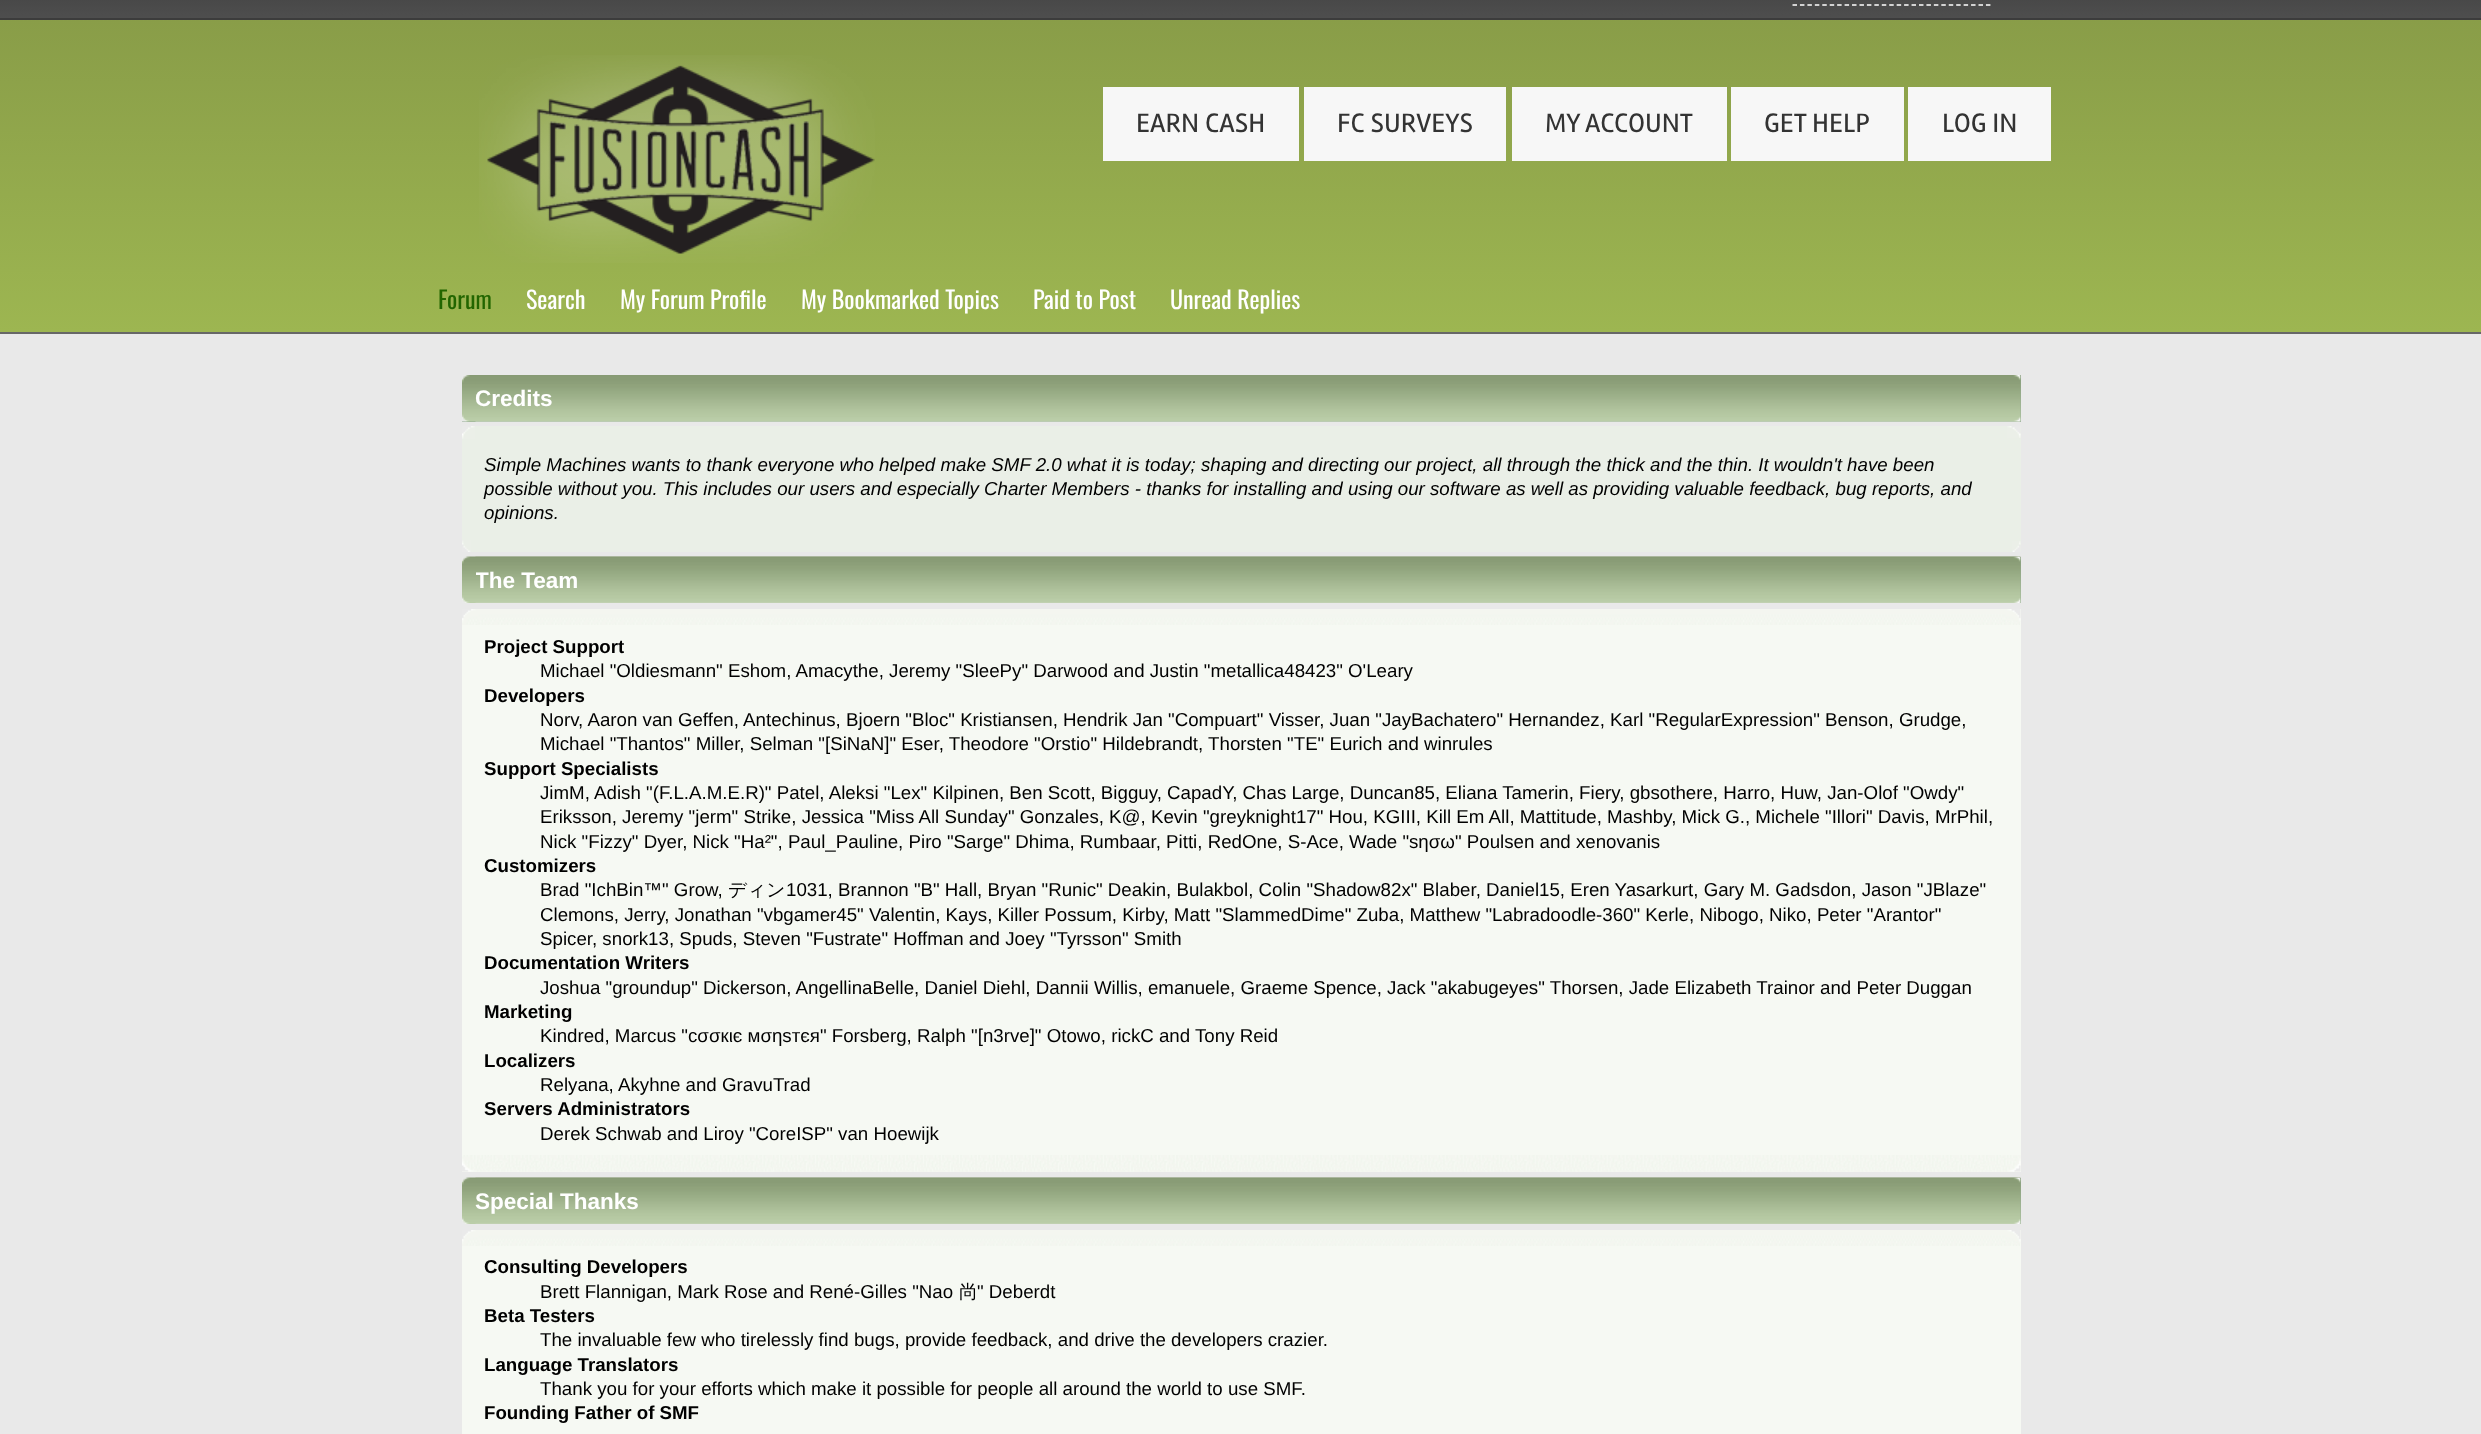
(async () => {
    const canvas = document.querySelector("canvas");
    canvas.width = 2481;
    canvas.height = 1434;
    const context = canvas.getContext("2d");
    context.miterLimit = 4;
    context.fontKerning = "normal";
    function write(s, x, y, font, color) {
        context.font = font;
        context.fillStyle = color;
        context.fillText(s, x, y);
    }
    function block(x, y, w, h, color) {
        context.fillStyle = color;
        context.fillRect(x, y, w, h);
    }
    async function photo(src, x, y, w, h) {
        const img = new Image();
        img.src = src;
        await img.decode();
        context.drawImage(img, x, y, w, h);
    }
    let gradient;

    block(0, 0, 2481, 1434, "rgb(233, 233, 233)");
    gradient = context.createLinearGradient(1241, -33, 1241, 18);
    gradient.addColorStop(0.5, "rgb(70, 70, 70)");
    gradient.addColorStop(1, "rgb(78, 78, 78)");
    gradient.addColorStop(1, "rgb(125, 185, 232)");
    context.fillStyle = gradient;
    context.fillRect(0, 0, 2481, 18);
    block(0, 18, 2481, 2, "rgb(60, 60, 60)");
    context.beginPath();
    context.moveTo(1792.5, 5);
    context.lineTo(1990.5, 5);
    context.strokeStyle = "rgb(255, 255, 255)";
    context.lineWidth = 1.5;
    context.setLineDash([4.5, 2.94]);
    context.stroke();
    gradient = context.createLinearGradient(1241, 19, 1241, 332);
    gradient.addColorStop(0, "rgb(137, 157, 72)");
    gradient.addColorStop(1, "rgb(157, 182, 81)");
    context.fillStyle = gradient;
    context.fillRect(0, 20, 2481, 312);
    block(0, 332, 2481, 2, "rgb(103, 103, 103)");
    await photo("media/1.png", 479, 55, 396, 208);
    block(1103, 87, 196, 74, "rgb(247, 247, 247)");
    write("EARN CASH", 1136, 132, "27.5px Rambla", "rgb(51, 51, 51)");
    block(1304, 87, 202, 74, "rgb(247, 247, 247)");
    write("FC SURVEYS", 1337, 132, "27.5px Rambla", "rgb(51, 51, 51)");
    block(1512, 87, 215, 74, "rgb(247, 247, 247)");
    write("MY ACCOUNT", 1545, 132, "27.5px Rambla", "rgb(51, 51, 51)");
    block(1731, 87, 173, 74, "rgb(247, 247, 247)");
    write("GET HELP", 1764, 132, "27.5px Rambla", "rgb(51, 51, 51)");
    block(1908, 87, 143, 74, "rgb(247, 247, 247)");
    write("LOG IN", 1942, 132, "27.5px Rambla", "rgb(51, 51, 51)");
    write("Forum", 438, 309, "24px Oswald", "rgb(34, 102, 0)");
    write("Search", 526, 309, "24px Oswald", "rgb(255, 255, 255)");
    write("My Forum Profile", 620, 309, "24px Oswald", "rgb(255, 255, 255)");
    write("My Bookmarked Topics", 801, 309, "24px Oswald", "rgb(255, 255, 255)");
    write("Paid to Post", 1033, 309, "24px Oswald", "rgb(255, 255, 255)");
    write("Unread Replies", 1170, 309, "24px Oswald", "rgb(255, 255, 255)");
    block(462, 375, 1559, 47, "rgb(144, 168, 144)");
    await photo("media/2.png", 462, 375, 1559, 47);
    await photo("media/3.png", 475, 375, 1546, 47);
    write("Credits", 475, 406, "bold 22.5px Liberation Sans", "rgb(255, 255, 255)");
    block(462, 426, 1559, 126, "rgb(234, 239, 231)");
    await photo("media/4.png", 462, 426, 13, 13);
    await photo("media/5.png", 2007, 426, 14, 12);
    write("Simple Machines wants to thank everyone who helped make SMF 2.0 what it is today; shaping and directing our project, all through the thick and the thin. It wouldn't have been", 484, 471, "italic 18.72px Liberation Sans", "rgb(0, 0, 0)");
    write("possible without you. This includes our users and especially Charter Members - thanks for installing and using our software as well as providing valuable feedback, bug reports, and", 484, 495, "italic 18.72px Liberation Sans", "rgb(0, 0, 0)");
    write("opinions.", 484, 519, "italic 18.72px Liberation Sans", "rgb(0, 0, 0)");
    await photo("media/6.png", 462, 540, 9, 12);
    await photo("media/7.png", 2012, 541, 9, 11);
    block(2020, 557, 1, 46, "rgb(144, 168, 144)");
    await photo("media/8.png", 462, 556, 1559, 47);
    await photo("media/9.png", 475, 556, 1546, 47);
    context.save();
    context.beginPath();
    context.rect(476, 557, 1545, 46);
    context.clip();
    write("The Team", 475, 588, "bold 22.5px Liberation Sans", "rgb(255, 255, 255)");
    context.restore();
    block(462, 609, 1559, 563, "rgb(246, 249, 243)");
    await photo("media/10.png", 462, 609, 1558, 16);
    await photo("media/11.png", 2004, 609, 17, 13);
    write("Project Support", 484, 653, "bold 18.72px Liberation Sans", "rgb(0, 0, 0)");
    write("Michael \"Oldiesmann\" Eshom, Amacythe, Jeremy \"SleePy\" Darwood and Justin \"metallica48423\" O'Leary", 540, 677, "18.72px Liberation Sans", "rgb(0, 0, 0)");
    write("Developers", 484, 702, "bold 18.72px Liberation Sans", "rgb(0, 0, 0)");
    write("Norv, Aaron van Geffen, Antechinus, Bjoern \"Bloc\" Kristiansen, Hendrik Jan \"Compuart\" Visser, Juan \"JayBachatero\" Hernandez, Karl \"RegularExpression\" Benson, Grudge,", 540, 726, "18.72px Liberation Sans", "rgb(0, 0, 0)");
    write("Michael \"Thantos\" Miller, Selman \"[SiNaN]\" Eser, Theodore \"Orstio\" Hildebrandt, Thorsten \"TE\" Eurich and winrules", 540, 750, "18.72px Liberation Sans", "rgb(0, 0, 0)");
    write("Support Specialists", 484, 775, "bold 18.72px Liberation Sans", "rgb(0, 0, 0)");
    write("JimM, Adish \"(F.L.A.M.E.R)\" Patel, Aleksi \"Lex\" Kilpinen, Ben Scott, Bigguy, CapadY, Chas Large, Duncan85, Eliana Tamerin, Fiery, gbsothere, Harro, Huw, Jan-Olof \"Owdy\"", 540, 799, "18.72px Liberation Sans", "rgb(0, 0, 0)");
    write("Eriksson, Jeremy \"jerm\" Strike, Jessica \"Miss All Sunday\" Gonzales, K@, Kevin \"greyknight17\" Hou, KGIII, Kill Em All, Mattitude, Mashby, Mick G., Michele \"Illori\" Davis, MrPhil,", 540, 823, "18.72px Liberation Sans", "rgb(0, 0, 0)");
    write("Nick \"Fizzy\" Dyer, Nick \"Ha²\", Paul_Pauline, Piro \"Sarge\" Dhima, Rumbaar, Pitti, RedOne, S-Ace, Wade \"sησω\" Poulsen and xenovanis", 540, 848, "18.72px Liberation Sans", "rgb(0, 0, 0)");
    write("Customizers", 484, 872, "bold 18.72px Liberation Sans", "rgb(0, 0, 0)");
    write("Brad \"IchBin™\" Grow,", 540, 896, "18.72px Liberation Sans", "rgb(0, 0, 0)");
    write("ディン", 728, 896, "500 18.72px WenQuanYi Zen Hei", "rgb(0, 0, 0)");
    write("1031, Brannon \"B\" Hall, Bryan \"Runic\" Deakin, Bulakbol, Colin \"Shadow82x\" Blaber, Daniel15, Eren Yasarkurt, Gary M. Gadsdon, Jason \"JBlaze\"", 786, 896, "18.72px Liberation Sans", "rgb(0, 0, 0)");
    write("Clemons, Jerry, Jonathan \"vbgamer45\" Valentin, Kays, Killer Possum, Kirby, Matt \"SlammedDime\" Zuba, Matthew \"Labradoodle-360\" Kerle, Nibogo, Niko, Peter \"Arantor\"", 540, 921, "18.72px Liberation Sans", "rgb(0, 0, 0)");
    write("Spicer, snork13, Spuds, Steven \"Fustrate\" Hoffman and Joey \"Tyrsson\" Smith", 540, 945, "18.72px Liberation Sans", "rgb(0, 0, 0)");
    write("Documentation Writers", 484, 969, "bold 18.72px Liberation Sans", "rgb(0, 0, 0)");
    write("Joshua \"groundup\" Dickerson, AngellinaBelle, Daniel Diehl, Dannii Willis, emanuele, Graeme Spence, Jack \"akabugeyes\" Thorsen, Jade Elizabeth Trainor and Peter Duggan", 540, 994, "18.72px Liberation Sans", "rgb(0, 0, 0)");
    write("Marketing", 484, 1018, "bold 18.72px Liberation Sans", "rgb(0, 0, 0)");
    write("Kindred, Marcus \"cσσкιє мσηѕтєя\" Forsberg, Ralph \"[n3rve]\" Otowo, rickC and Tony Reid", 540, 1042, "18.72px Liberation Sans", "rgb(0, 0, 0)");
    write("Localizers", 484, 1067, "bold 18.72px Liberation Sans", "rgb(0, 0, 0)");
    write("Relyana, Akyhne and GravuTrad", 540, 1091, "18.72px Liberation Sans", "rgb(0, 0, 0)");
    write("Servers Administrators", 484, 1115, "bold 18.72px Liberation Sans", "rgb(0, 0, 0)");
    write("Derek Schwab and Liroy \"CoreISP\" van Hoewijk", 540, 1140, "18.72px Liberation Sans", "rgb(0, 0, 0)");
    await photo("media/12.png", 462, 1155, 1558, 17);
    await photo("media/13.png", 773, 1155, 1248, 17);
    block(2020, 1178, 1, 46, "rgb(144, 168, 144)");
    await photo("media/8.png", 462, 1177, 1559, 47);
    await photo("media/9.png", 475, 1177, 1546, 47);
    write("Special Thanks", 475, 1209, "bold 22.5px Liberation Sans", "rgb(255, 255, 255)");
    block(462, 1230, 1559, 204, "rgb(246, 249, 243)");
    await photo("media/10.png", 462, 1230, 1558, 16);
    await photo("media/11.png", 2004, 1230, 17, 13);
    write("Consulting Developers", 484, 1273, "bold 18.72px Liberation Sans", "rgb(0, 0, 0)");
    write("Brett Flannigan, Mark Rose and René-Gilles \"Nao", 540, 1298, "18.72px Liberation Sans", "rgb(0, 0, 0)");
    write("尚", 959, 1298, "500 18.72px WenQuanYi Zen Hei", "rgb(0, 0, 0)");
    write("\" Deberdt", 977, 1298, "18.72px Liberation Sans", "rgb(0, 0, 0)");
    write("Beta Testers", 484, 1322, "bold 18.72px Liberation Sans", "rgb(0, 0, 0)");
    write("The invaluable few who tirelessly find bugs, provide feedback, and drive the developers crazier.", 540, 1346, "18.72px Liberation Sans", "rgb(0, 0, 0)");
    write("Language Translators", 484, 1371, "bold 18.72px Liberation Sans", "rgb(0, 0, 0)");
    write("Thank you for your efforts which make it possible for people all around the world to use SMF.", 540, 1395, "18.72px Liberation Sans", "rgb(0, 0, 0)");
    write("Founding Father of SMF", 484, 1419, "bold 18.72px Liberation Sans", "rgb(0, 0, 0)");
})();
